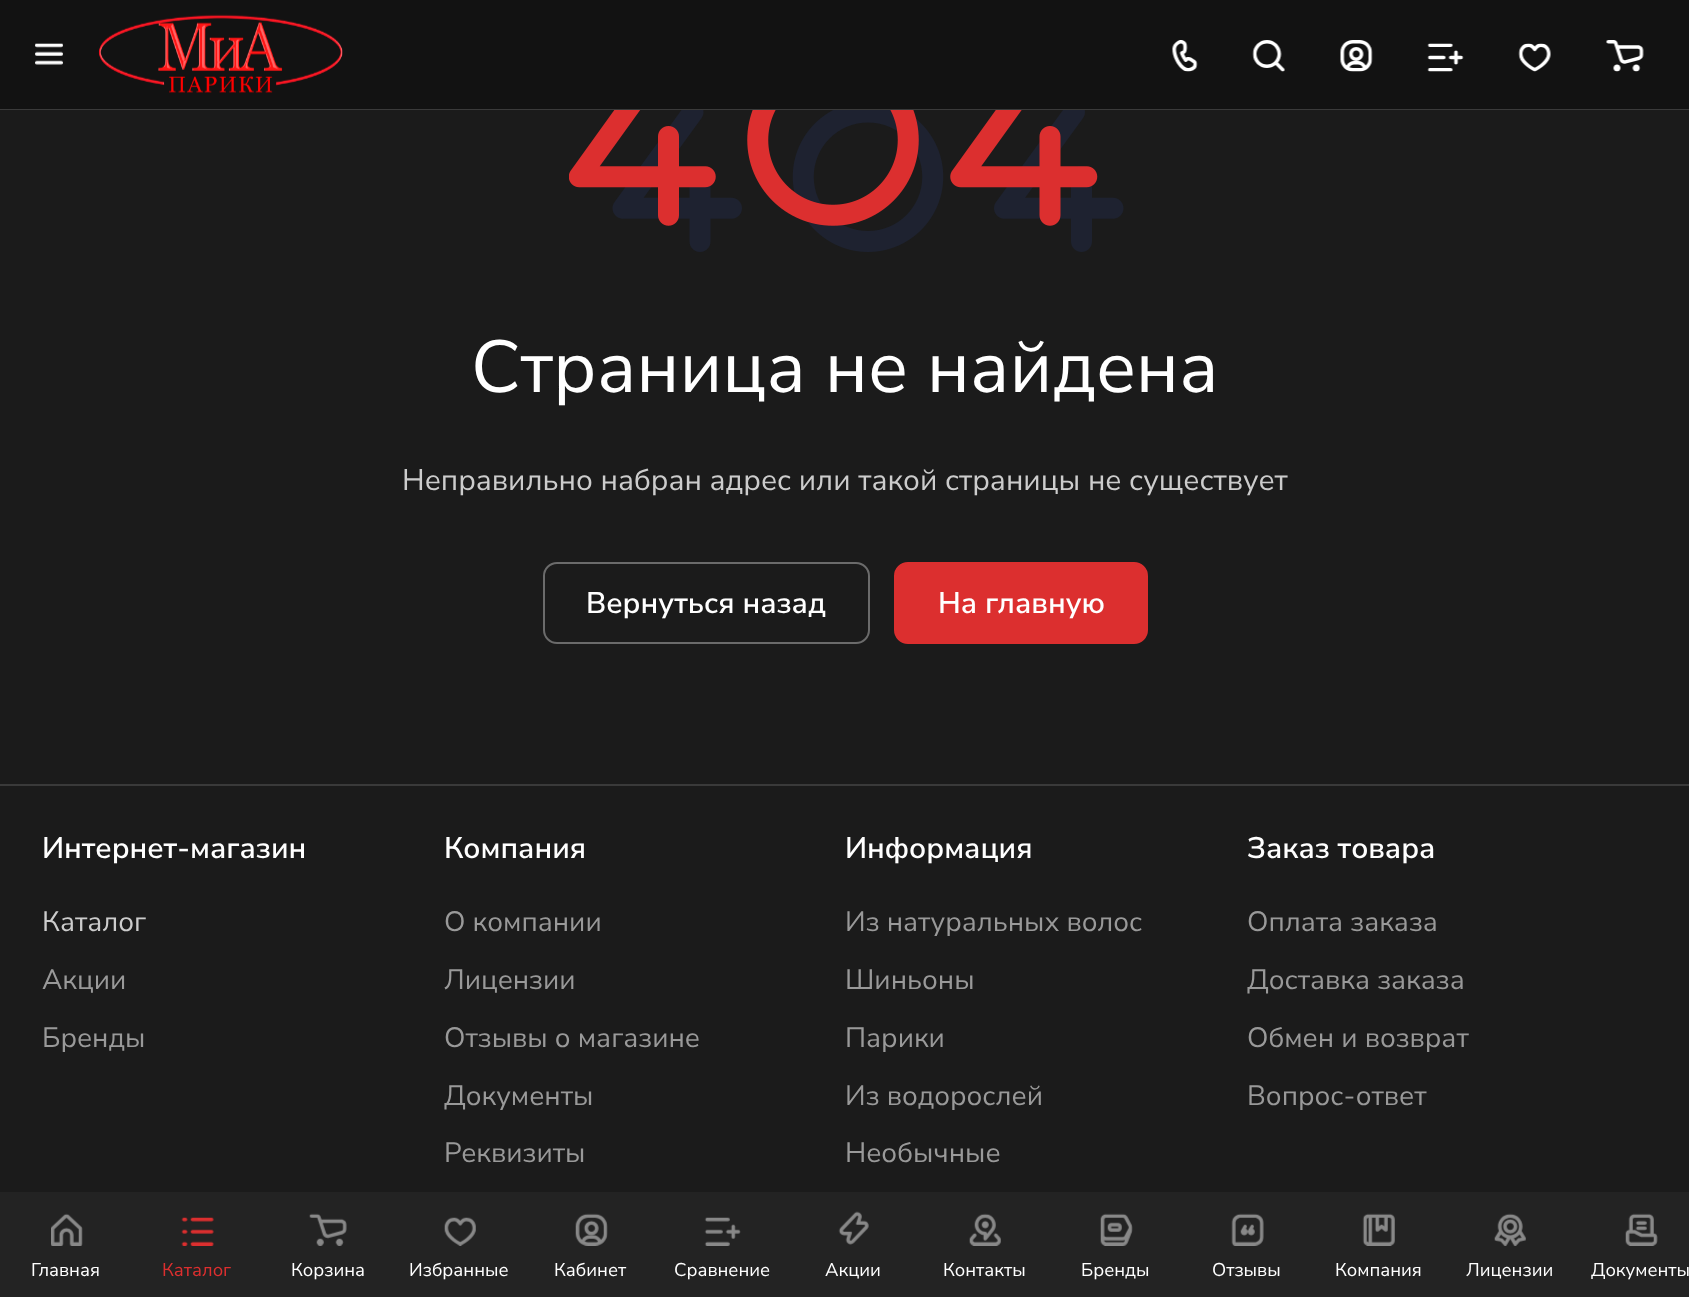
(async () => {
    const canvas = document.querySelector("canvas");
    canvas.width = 1689;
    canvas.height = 1297;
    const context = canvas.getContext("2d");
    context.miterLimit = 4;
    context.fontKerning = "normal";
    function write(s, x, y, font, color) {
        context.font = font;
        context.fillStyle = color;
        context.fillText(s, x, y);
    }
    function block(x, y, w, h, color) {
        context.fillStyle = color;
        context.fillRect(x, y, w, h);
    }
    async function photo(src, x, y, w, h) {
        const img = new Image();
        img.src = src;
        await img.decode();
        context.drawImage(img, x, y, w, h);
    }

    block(0, 0, 1689, 1297, "rgb(27, 27, 27)");
    context.fillStyle = "rgb(58, 58, 58)";
    context.beginPath();
    context.moveTo(0, 108);
    context.lineTo(0, 110);
    context.lineTo(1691, 110);
    context.lineTo(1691, 2);
    context.lineTo(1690, 2);
    context.lineTo(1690, 108);
    context.closePath();
    context.fill();
    block(0, 0, 1689, 109, "rgb(18, 18, 18)");
    await photo("media/1.png", 35, 43, 28, 22);
    await photo("media/2.png", 98, 14, 245, 79);
    await photo("media/3.png", 1172, 40, 26, 32);
    await photo("media/4.png", 1252, 40, 33, 32);
    await photo("media/5.png", 1340, 40, 33, 32);
    await photo("media/6.png", 1427, 43, 37, 29);
    await photo("media/7.png", 1518, 43, 33, 29);
    await photo("media/8.png", 1606, 40, 38, 32);
    await photo("media/9.png", 569, 110, 555, 142);
    write("Страница не найдена", 471, 392, "73.5px Nunito Sans", "rgb(255, 255, 255)");
    write("Неправильно набран адрес или такой страницы не существует", 402, 490, "29.75px Nunito Sans", "rgb(204, 204, 204)");
    context.beginPath();
    context.roundRect(544, 563, 325, 80, 13);
    context.strokeStyle = "rgb(107, 107, 107)";
    context.lineWidth = 2;
    context.stroke();
    write("Вернуться назад", 586, 613, "600 29.75px Nunito Sans", "rgb(255, 255, 255)");
    context.fillStyle = "rgb(220, 47, 47)";
    context.beginPath();
    context.roundRect(895, 563, 252, 80, 13);
    context.fill();
    context.strokeStyle = "rgb(220, 47, 47)";
    context.stroke();
    write("На главную", 938, 613, "600 29.75px Nunito Sans", "rgb(255, 255, 255)");
    block(0, 784, 1689, 2, "rgb(58, 58, 58)");
    write("Интернет-магазин", 42, 858, "600 29.75px Nunito Sans", "rgb(255, 255, 255)");
    write("Каталог", 42, 931, "27.9px Nunito Sans", "rgb(204, 204, 204)");
    write("Акции", 42, 989, "27.9px Nunito Sans", "rgb(153, 153, 153)");
    write("Бренды", 42, 1047, "27.9px Nunito Sans", "rgb(153, 153, 153)");
    write("Компания", 444, 858, "600 29.75px Nunito Sans", "rgb(255, 255, 255)");
    write("О компании", 444, 931, "27.9px Nunito Sans", "rgb(153, 153, 153)");
    write("Лицензии", 444, 989, "27.9px Nunito Sans", "rgb(153, 153, 153)");
    write("Отзывы о магазине", 444, 1047, "27.9px Nunito Sans", "rgb(153, 153, 153)");
    write("Документы", 444, 1105, "27.9px Nunito Sans", "rgb(153, 153, 153)");
    write("Реквизиты", 444, 1162, "27.9px Nunito Sans", "rgb(153, 153, 153)");
    write("Информация", 845, 858, "600 29.75px Nunito Sans", "rgb(255, 255, 255)");
    write("Из натуральных волос", 845, 931, "27.9px Nunito Sans", "rgb(153, 153, 153)");
    write("Шиньоны", 845, 989, "27.9px Nunito Sans", "rgb(153, 153, 153)");
    write("Парики", 845, 1047, "27.9px Nunito Sans", "rgb(153, 153, 153)");
    write("Из водорослей", 845, 1105, "27.9px Nunito Sans", "rgb(153, 153, 153)");
    write("Необычные", 845, 1162, "27.9px Nunito Sans", "rgb(153, 153, 153)");
    write("Заказ товара", 1247, 858, "600 29.75px Nunito Sans", "rgb(255, 255, 255)");
    write("Оплата заказа", 1247, 931, "27.9px Nunito Sans", "rgb(153, 153, 153)");
    write("Доставка заказа", 1247, 989, "27.9px Nunito Sans", "rgb(153, 153, 153)");
    write("Обмен и возврат", 1247, 1047, "27.9px Nunito Sans", "rgb(153, 153, 153)");
    write("Вопрос-ответ", 1247, 1105, "27.9px Nunito Sans", "rgb(153, 153, 153)");
    block(0, 1192, 1689, 105, "rgb(35, 35, 35)");
    await photo("media/10.png", 51, 1213, 32, 33);
    write("Главная", 31, 1276, "18.5px Nunito Sans", "rgb(255, 255, 255)");
    await photo("media/11.png", 181, 1217, 33, 29);
    write("Каталог", 162, 1276, "18.5px Nunito Sans", "rgb(220, 47, 47)");
    await photo("media/12.png", 309, 1213, 38, 33);
    write("Корзина", 291, 1276, "18.5px Nunito Sans", "rgb(255, 255, 255)");
    await photo("media/13.png", 444, 1217, 32, 29);
    write("Избранные", 409, 1276, "18.5px Nunito Sans", "rgb(255, 255, 255)");
    await photo("media/14.png", 575, 1213, 33, 33);
    write("Кабинет", 554, 1276, "18.5px Nunito Sans", "rgb(255, 255, 255)");
    await photo("media/15.png", 704, 1217, 37, 29);
    write("Сравнение", 674, 1276, "18.5px Nunito Sans", "rgb(255, 255, 255)");
    await photo("media/16.png", 838, 1211, 31, 34);
    write("Акции", 825, 1276, "18.5px Nunito Sans", "rgb(255, 255, 255)");
    await photo("media/17.png", 969, 1213, 32, 33);
    write("Контакты", 943, 1276, "18.5px Nunito Sans", "rgb(255, 255, 255)");
    await photo("media/18.png", 1100, 1213, 33, 33);
    write("Бренды", 1081, 1276, "18.5px Nunito Sans", "rgb(255, 255, 255)");
    await photo("media/19.png", 1231, 1213, 33, 33);
    write("Отзывы", 1212, 1276, "18.5px Nunito Sans", "rgb(255, 255, 255)");
    await photo("media/20.png", 1362, 1213, 33, 33);
    write("Компания", 1335, 1276, "18.5px Nunito Sans", "rgb(255, 255, 255)");
    await photo("media/21.png", 1494, 1213, 32, 33);
    write("Лицензии", 1466, 1276, "18.5px Nunito Sans", "rgb(255, 255, 255)");
    await photo("media/22.png", 1625, 1213, 33, 33);
    write("Документы", 1591, 1276, "18.5px Nunito Sans", "rgb(255, 255, 255)");
})();
